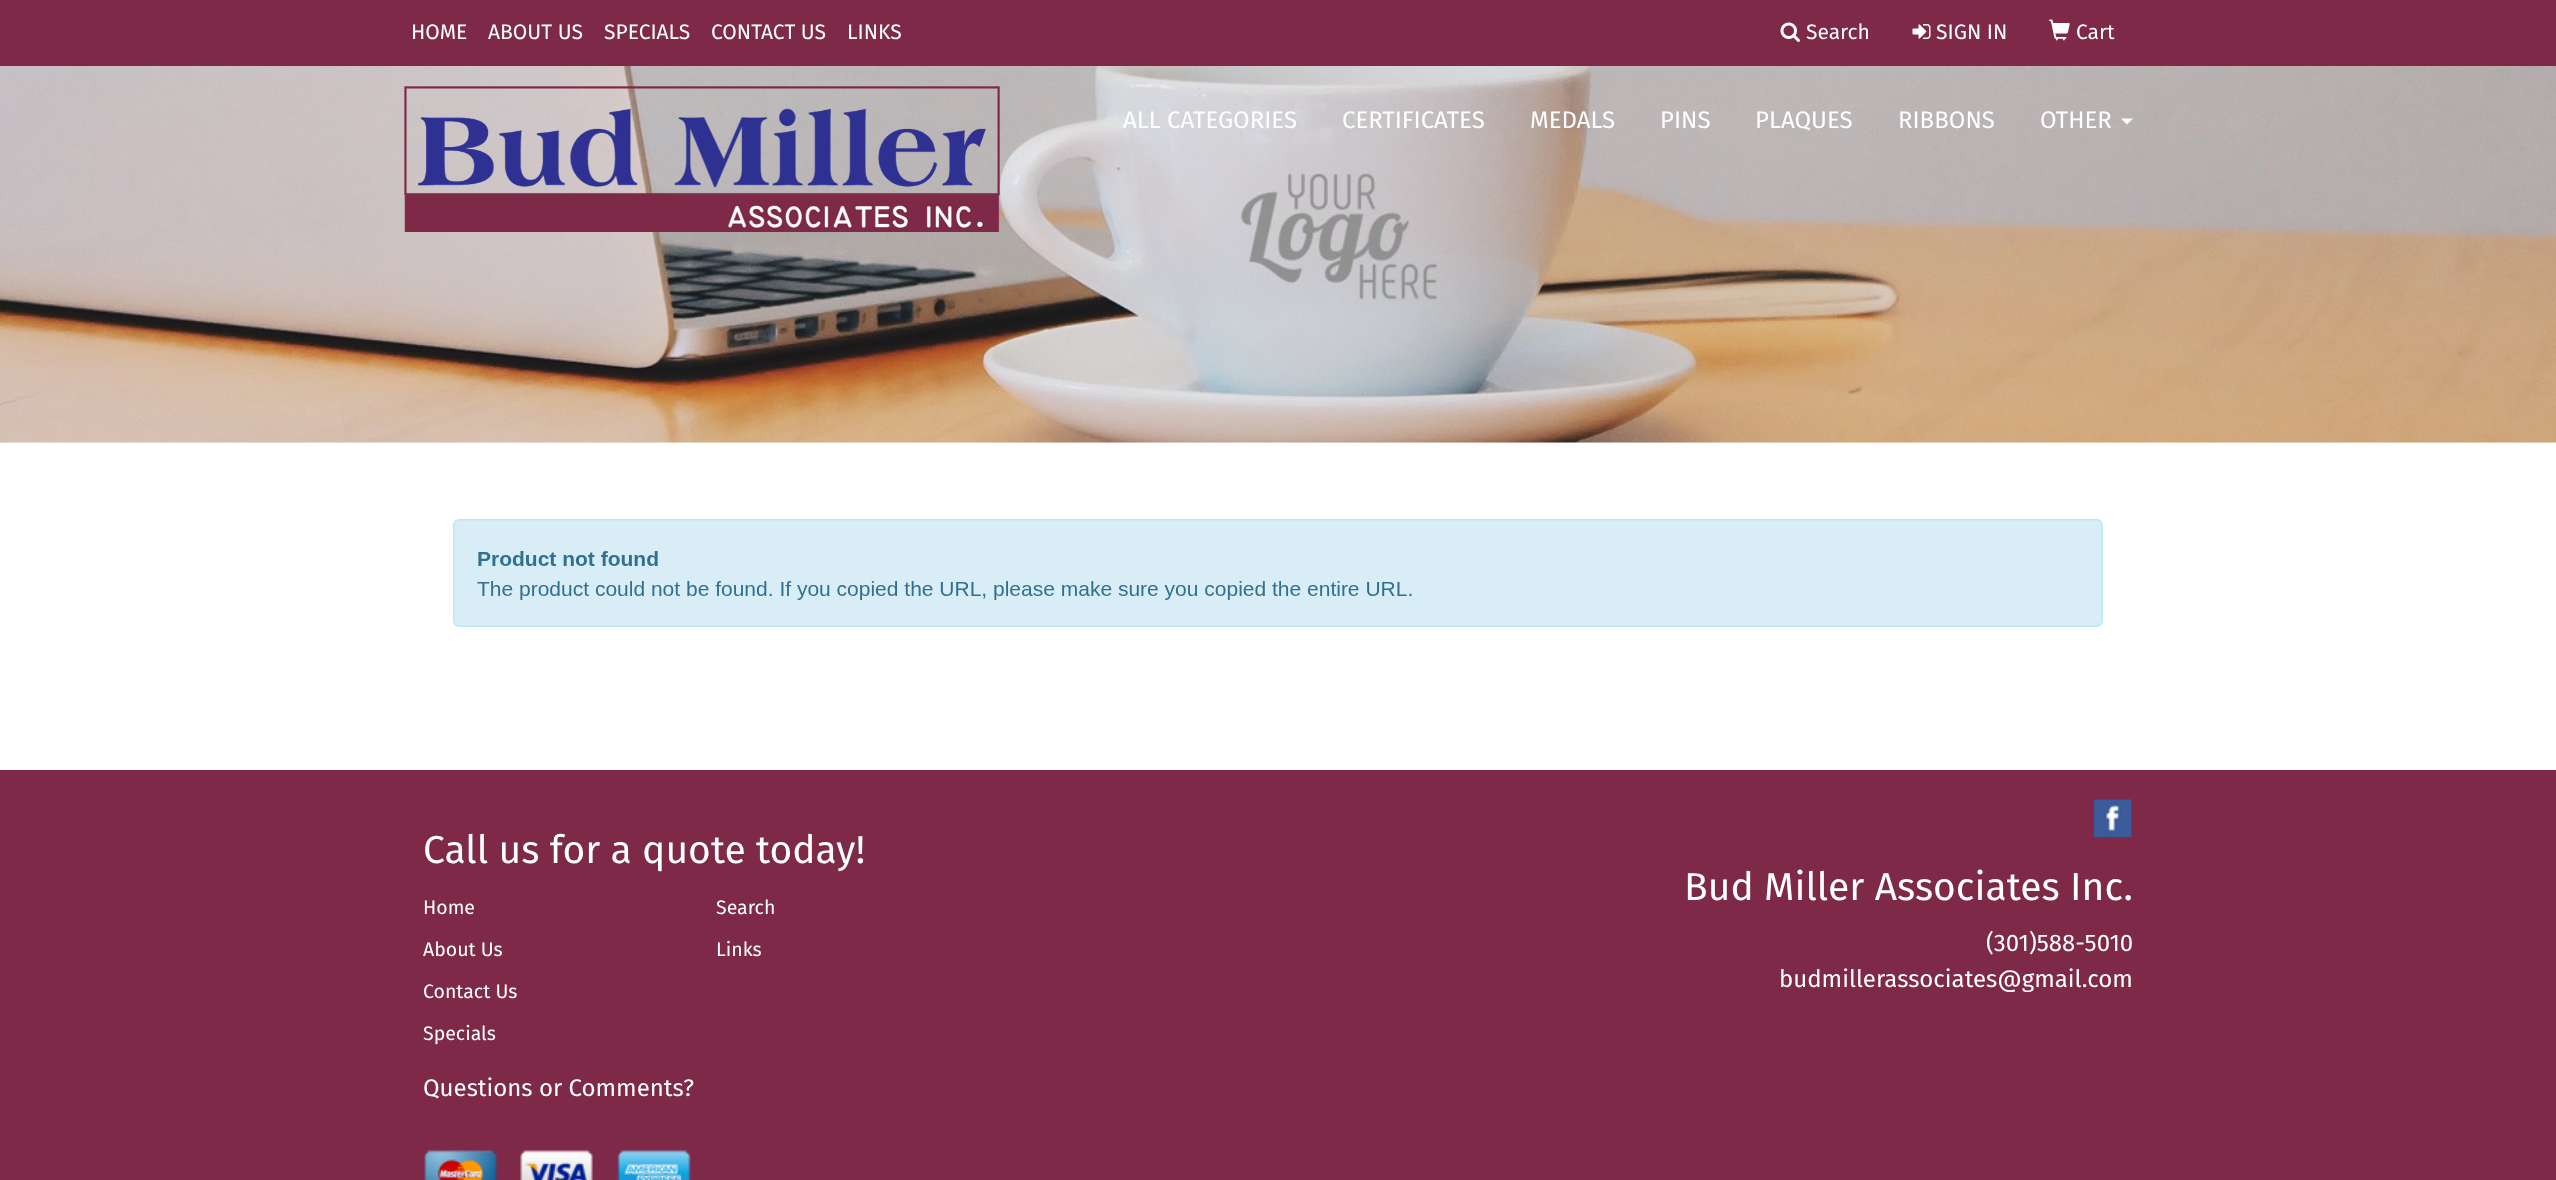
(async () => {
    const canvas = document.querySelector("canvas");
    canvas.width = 2556;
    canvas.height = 1180;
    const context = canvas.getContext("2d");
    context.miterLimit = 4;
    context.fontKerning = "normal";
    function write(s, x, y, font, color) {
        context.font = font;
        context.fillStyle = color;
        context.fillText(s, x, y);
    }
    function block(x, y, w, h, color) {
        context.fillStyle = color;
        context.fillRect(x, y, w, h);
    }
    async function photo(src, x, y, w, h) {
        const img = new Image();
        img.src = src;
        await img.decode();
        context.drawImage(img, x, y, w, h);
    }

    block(0, 0, 2556, 1180, "rgb(244, 244, 244)");
    block(0, 0, 2556, 66, "rgb(126, 41, 71)");
    write("HOME", 411, 39, "21px Fira Sans", "rgb(255, 255, 255)");
    write("ABOUT US", 488, 39, "21px Fira Sans", "rgb(255, 255, 255)");
    write("SPECIALS", 604, 39, "21px Fira Sans", "rgb(255, 255, 255)");
    write("CONTACT US", 711, 39, "21px Fira Sans", "rgb(255, 255, 255)");
    write("LINKS", 847, 39, "21px Fira Sans", "rgb(255, 255, 255)");
    await photo("media/1.png", 1780, 22, 20, 20);
    write("Search", 1806, 39, "21px Fira Sans", "rgb(255, 255, 255)");
    await photo("media/2.png", 1912, 24, 19, 15);
    write("SIGN IN", 1936, 39, "21px Fira Sans", "rgb(255, 255, 255)");
    await photo("media/3.png", 2049, 19, 21, 22);
    write("Cart", 2076, 39, "21px Fira Sans", "rgb(255, 255, 255)");
    await photo("media/5.png", 0, 66, 2556, 377);
    await photo("media/4.png", 404, 86, 596, 146);
    write("ALL CATEGORIES", 1123, 128, "24px Fira Sans", "rgb(255, 255, 255)");
    write("CERTIFICATES", 1342, 128, "24px Fira Sans", "rgb(255, 255, 255)");
    write("MEDALS", 1530, 128, "24px Fira Sans", "rgb(255, 255, 255)");
    write("PINS", 1660, 128, "24px Fira Sans", "rgb(255, 255, 255)");
    write("PLAQUES", 1755, 128, "24px Fira Sans", "rgb(255, 255, 255)");
    write("RIBBONS", 1898, 128, "24px Fira Sans", "rgb(255, 255, 255)");
    write("OTHER", 2040, 128, "24px Fira Sans", "rgb(255, 255, 255)");
    context.beginPath();
    context.moveTo(2121, 118.5);
    context.lineTo(2133, 118.5);
    context.lineTo(2127, 124.5);
    context.closePath();
    context.fill();
    block(0, 443, 2556, 327, "rgb(255, 255, 255)");
    await photo("media/6.png", 453, 519, 1650, 108);
    block(0, 770, 2556, 410, "rgb(126, 41, 71)");
    write("Call us for a quote today!", 423, 863, "39px Fira Sans", "rgb(255, 255, 255)");
    write("Home", 423, 914, "19.5px Fira Sans", "rgb(255, 255, 255)");
    write("About Us", 423, 956, "19.5px Fira Sans", "rgb(255, 255, 255)");
    write("Contact Us", 423, 998, "19.5px Fira Sans", "rgb(255, 255, 255)");
    write("Specials", 423, 1040, "19.5px Fira Sans", "rgb(255, 255, 255)");
    write("Search", 716, 914, "19.5px Fira Sans", "rgb(255, 255, 255)");
    write("Links", 716, 956, "19.5px Fira Sans", "rgb(255, 255, 255)");
    write("Questions or Comments?", 423, 1096, "24px Fira Sans", "rgb(255, 255, 255)");
    await photo("media/7.png", 424, 1150, 73, 30);
    await photo("media/8.png", 520, 1150, 73, 30);
    await photo("media/9.png", 617, 1150, 74, 30);
    await photo("media/10.png", 2094, 799, 38, 38);
    write("Bud Miller Associates Inc.", 1684, 900, "39px Fira Sans", "rgb(255, 255, 255)");
    write("(301)588-5010", 1986, 951, "24px Fira Sans", "rgb(255, 255, 255)");
    write("budmillerassociates@gmail.com", 1779, 987, "24px Fira Sans", "rgb(255, 255, 255)");
})();
